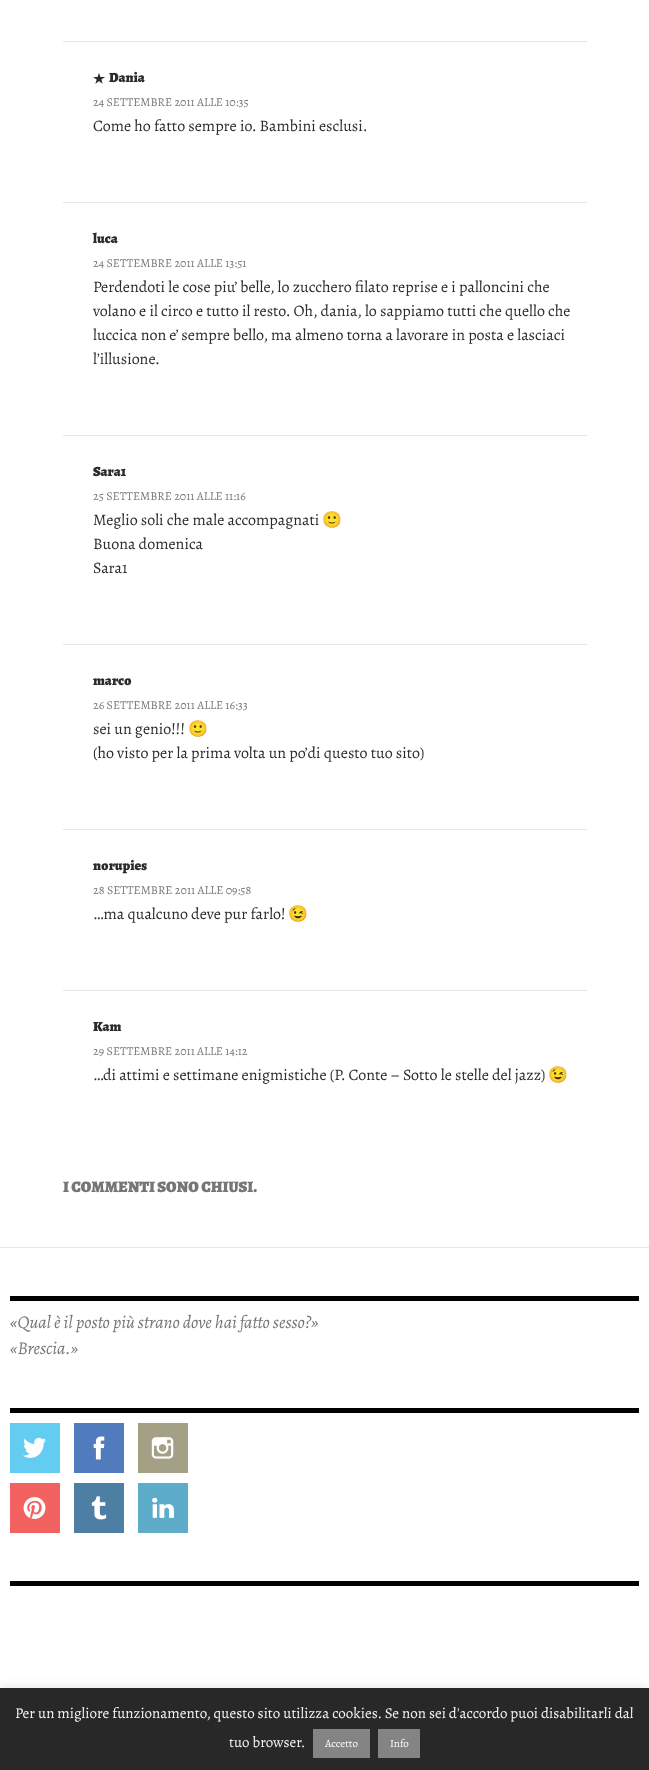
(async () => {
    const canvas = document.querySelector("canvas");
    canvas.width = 649;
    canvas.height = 1770;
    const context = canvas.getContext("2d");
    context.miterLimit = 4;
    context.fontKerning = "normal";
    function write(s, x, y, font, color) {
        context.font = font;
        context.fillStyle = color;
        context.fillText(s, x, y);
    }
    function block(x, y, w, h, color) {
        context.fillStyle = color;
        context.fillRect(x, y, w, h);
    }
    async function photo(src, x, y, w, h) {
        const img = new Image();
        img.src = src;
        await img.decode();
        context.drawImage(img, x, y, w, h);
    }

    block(0, 0, 649, 1770, "rgb(255, 255, 255)");
    block(63, 41, 524, 1, "rgb(230, 230, 230)");
    await photo("media/1.png", 93, 73, 12, 11);
    write("Dania", 109, 82, "900 14px Alegreya", "rgb(43, 43, 43)");
    write("24 SETTEMBRE 2011 ALLE 10:35", 93, 106, "12px Alegreya", "rgb(118, 118, 118)");
    write("Come ho fatto sempre io. Bambini esclusi.", 93, 131, "16px Alegreya", "rgb(43, 43, 43)");
    block(63, 202, 524, 1, "rgb(230, 230, 230)");
    write("luca", 93, 243, "900 14px Alegreya", "rgb(43, 43, 43)");
    write("24 SETTEMBRE 2011 ALLE 13:51", 93, 267, "12px Alegreya", "rgb(118, 118, 118)");
    write("Perdendoti le cose piu’ belle, lo zucchero filato reprise e i palloncini che", 93, 292, "16px Alegreya", "rgb(43, 43, 43)");
    write("volano e il circo e tutto il resto. Oh, dania, lo sappiamo tutti che quello che", 93, 316, "16px Alegreya", "rgb(43, 43, 43)");
    write("luccica non e’ sempre bello, ma almeno torna a lavorare in posta e lasciaci", 93, 340, "16px Alegreya", "rgb(43, 43, 43)");
    write("l’illusione.", 93, 364, "16px Alegreya", "rgb(43, 43, 43)");
    block(63, 435, 524, 1, "rgb(230, 230, 230)");
    write("Sara1", 93, 476, "900 14px Alegreya", "rgb(43, 43, 43)");
    write("25 SETTEMBRE 2011 ALLE 11:16", 93, 500, "12px Alegreya", "rgb(118, 118, 118)");
    write("Meglio soli che male accompagnati", 93, 525, "16px Alegreya", "rgb(43, 43, 43)");
    write("🙂", 322, 525, "16px Noto Color Emoji", "rgb(43, 43, 43)");
    write("Buona domenica", 93, 549, "16px Alegreya", "rgb(43, 43, 43)");
    write("Sara1", 93, 573, "16px Alegreya", "rgb(43, 43, 43)");
    block(63, 644, 524, 1, "rgb(230, 230, 230)");
    write("marco", 93, 685, "900 14px Alegreya", "rgb(43, 43, 43)");
    write("26 SETTEMBRE 2011 ALLE 16:33", 93, 709, "12px Alegreya", "rgb(118, 118, 118)");
    write("sei un genio!!!", 93, 734, "16px Alegreya", "rgb(43, 43, 43)");
    write("🙂", 188, 734, "16px Noto Color Emoji", "rgb(43, 43, 43)");
    write("(ho visto per la prima volta un po’di questo tuo sito)", 93, 758, "16px Alegreya", "rgb(43, 43, 43)");
    block(63, 829, 524, 1, "rgb(230, 230, 230)");
    write("norupies", 93, 870, "900 14px Alegreya", "rgb(43, 43, 43)");
    write("28 SETTEMBRE 2011 ALLE 09:58", 93, 894, "12px Alegreya", "rgb(118, 118, 118)");
    write("…ma qualcuno deve pur farlo!", 93, 919, "16px Alegreya", "rgb(43, 43, 43)");
    write("😉", 288, 919, "16px Noto Color Emoji", "rgb(43, 43, 43)");
    block(63, 990, 524, 1, "rgb(230, 230, 230)");
    write("Kam", 93, 1031, "900 14px Alegreya", "rgb(43, 43, 43)");
    write("29 SETTEMBRE 2011 ALLE 14:12", 93, 1055, "12px Alegreya", "rgb(118, 118, 118)");
    write("…di attimi e settimane enigmistiche (P. Conte – Sotto le stelle del jazz)", 93, 1080, "16px Alegreya", "rgb(43, 43, 43)");
    write("😉", 548, 1080, "16px Noto Color Emoji", "rgb(43, 43, 43)");
    write("I COMMENTI SONO CHIUSI.", 63, 1192, "900 16px Alegreya", "rgb(118, 118, 118)");
    block(0, 1247, 649, 1, "rgb(230, 230, 230)");
    block(10, 1296, 629, 5, "rgb(0, 0, 0)");
    write("«Qual è il posto più strano dove hai fatto sesso?»", 10, 1328, "italic 18px Alegreya", "rgb(118, 118, 118)");
    write("«Brescia.»", 10, 1354, "italic 18px Alegreya", "rgb(118, 118, 118)");
    block(10, 1408, 629, 5, "rgb(0, 0, 0)");
    await photo("media/2.png", 10, 1423, 50, 50);
    await photo("media/3.png", 74, 1423, 50, 50);
    await photo("media/4.png", 138, 1423, 50, 50);
    await photo("media/5.png", 10, 1483, 50, 50);
    await photo("media/6.png", 74, 1483, 50, 50);
    await photo("media/7.png", 138, 1483, 50, 50);
    block(10, 1581, 629, 5, "rgb(0, 0, 0)");
    context.fillStyle = "rgba(172, 171, 171, 0.3)";
    context.filter = "blur(5px)";
    context.beginPath();
    context.rect(0, 1687, 649, 82);
    context.fill();
    context.filter = "none";
    block(0, 1688, 649, 82, "rgb(40, 40, 40)");
    write("Per un migliore funzionamento, questo sito utilizza cookies. Se non sei d'accordo puoi disabilitarli dal", 15, 1718, "15px Alegreya", "rgb(244, 244, 244)");
    write("tuo browser.", 229, 1747, "15px Alegreya", "rgb(244, 244, 244)");
    block(313, 1729, 57, 29, "rgb(132, 132, 132)");
    write("Accetto", 325, 1747, "11px Alegreya", "rgb(255, 255, 255)");
    block(378, 1729, 42, 29, "rgb(132, 132, 132)");
    write("Info", 390, 1747, "11px Alegreya", "rgb(255, 255, 255)");
})();
